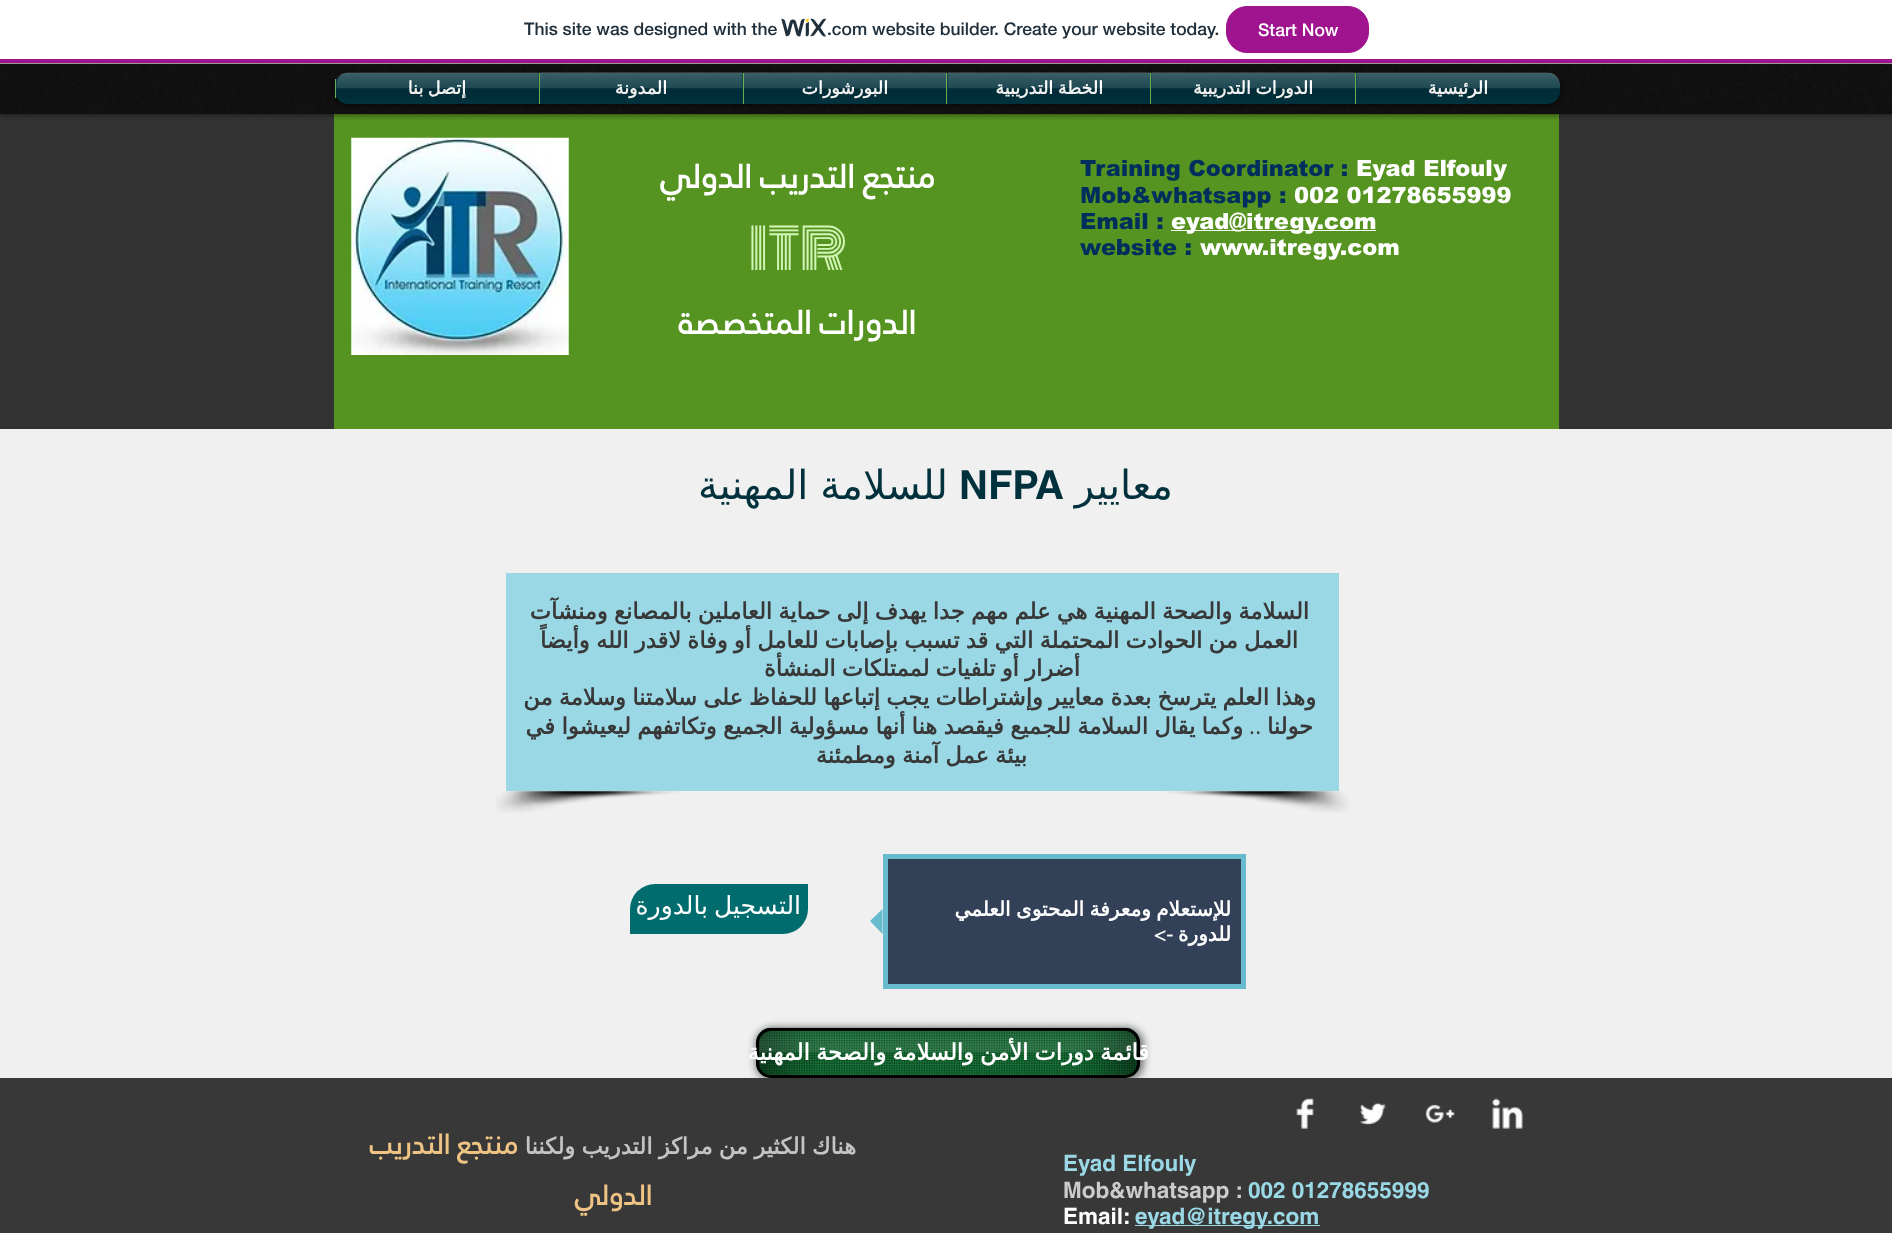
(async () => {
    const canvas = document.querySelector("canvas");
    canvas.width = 1892;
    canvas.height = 1233;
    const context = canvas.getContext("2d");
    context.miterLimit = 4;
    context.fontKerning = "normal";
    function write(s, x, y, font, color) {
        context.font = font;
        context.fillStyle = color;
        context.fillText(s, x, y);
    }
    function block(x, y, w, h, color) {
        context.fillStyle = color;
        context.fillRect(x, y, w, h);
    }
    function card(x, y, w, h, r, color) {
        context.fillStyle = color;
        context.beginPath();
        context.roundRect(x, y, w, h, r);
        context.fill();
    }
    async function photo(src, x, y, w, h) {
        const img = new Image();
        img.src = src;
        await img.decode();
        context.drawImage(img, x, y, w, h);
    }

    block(0, 0, 1892, 1233, "rgb(240, 240, 240)");
    block(0, 64, 1892, 50, "rgb(15, 15, 15)");
    block(0, 63, 1892, 1, "rgb(157, 157, 157)");
    block(0, 114, 1892, 315, "rgb(51, 51, 51)");
    block(334, 114, 1225, 315, "rgb(86, 148, 33)");
    context.save();
    context.beginPath();
    context.moveTo(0, 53);
    context.lineTo(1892, 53);
    context.lineTo(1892, 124);
    context.lineTo(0, 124);
    context.closePath();
    context.moveTo(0, 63);
    context.lineTo(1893, 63);
    context.lineTo(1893, 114);
    context.lineTo(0, 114);
    context.closePath();
    context.clip("evenodd");
    context.fillStyle = "rgba(0, 0, 0, 0.7)";
    context.filter = "blur(3px)";
    context.beginPath();
    context.rect(0, 63, 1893, 51);
    context.fill();
    context.filter = "none";
    context.restore();
    block(0, 0, 1892, 59, "rgb(255, 255, 255)");
    block(0, 59, 1892, 4, "rgb(160, 19, 142)");
    context.beginPath();
    context.roundRect(1226.5, 6.5, 142, 46, 20.5);
    context.fill();
    context.strokeStyle = "rgb(160, 19, 142)";
    context.stroke();
    write("Start Now", 1258, 36, "500 17.5px 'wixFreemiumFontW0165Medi'", "rgb(255, 255, 255)");
    write(".com website builder. Create your website today.", 827, 35, "500 17.5px 'wixFreemiumFontW0165Medi'", "rgb(32, 48, 60)");
    await photo("media/1.png", 781, 18, 45, 19);
    write("This site was designed with the", 524, 35, "500 17.5px 'wixFreemiumFontW0165Medi'", "rgb(32, 48, 60)");
    await photo("media/2.png", 0, 63, 1892, 50);
    context.fillStyle = "rgba(0, 0, 0, 0.6)";
    context.filter = "blur(2.5px)";
    context.beginPath();
    context.roundRect(335, 74, 1225, 31, 13);
    context.fill();
    context.filter = "none";
    await photo("media/3.png", 336, 72, 1224, 14);
    context.fillStyle = "rgb(1, 49, 60)";
    context.beginPath();
    context.roundRect(1355, 73, 205, 31, [0, 13, 13, 0]);
    context.fill();
    block(1355, 73, 1, 31, "rgb(104, 176, 77)");
    context.direction = "rtl";
    write("الرئيسية", 1488, 94, "bold 17.5px DejaVu Sans", "rgb(255, 255, 255)");
    await photo("media/4.png", 1356, 72, 204, 27);
    block(1151, 73, 204, 31, "rgb(1, 49, 60)");
    block(1150, 73, 1, 31, "rgb(104, 176, 77)");
    context.wordSpacing = "-1px";
    write("الدورات التدريبية", 1313, 94, "bold 17.5px DejaVu Sans", "rgb(255, 255, 255)");
    await photo("media/5.png", 1151, 72, 204, 27);
    block(947, 73, 203, 31, "rgb(1, 49, 60)");
    block(946, 73, 1, 31, "rgb(104, 176, 77)");
    write("الخطة التدريبية", 1103, 94, "bold 17.5px DejaVu Sans", "rgb(255, 255, 255)");
    await photo("media/6.png", 947, 72, 203, 27);
    block(744, 73, 202, 31, "rgb(1, 49, 60)");
    block(743, 73, 1, 31, "rgb(104, 176, 77)");
    context.wordSpacing = "0px";
    write("البورشورات", 888, 94, "bold 17.5px DejaVu Sans", "rgb(255, 255, 255)");
    await photo("media/7.png", 743, 72, 204, 27);
    block(540, 73, 203, 31, "rgb(1, 49, 60)");
    block(539, 73, 1, 31, "rgb(104, 176, 77)");
    write("المدونة", 667, 94, "bold 17.5px DejaVu Sans", "rgb(255, 255, 255)");
    await photo("media/8.png", 540, 72, 203, 27);
    context.fillStyle = "rgb(1, 49, 60)";
    context.beginPath();
    context.roundRect(335, 73, 204, 31, [13, 0, 0, 13]);
    context.fill();
    block(335, 79, 1, 19, "rgb(104, 176, 77)");
    context.wordSpacing = "-1px";
    write("إتصل بنا", 466, 94, "bold 17.5px DejaVu Sans", "rgb(255, 255, 255)");
    await photo("media/9.png", 336, 72, 203, 27);
    context.wordSpacing = "0px";
    context.direction = "ltr";
    write("Eyad Elfouly", 1356, 176, "900 22.5px arial", "rgb(255, 255, 255)");
    write("Training Coordinator :", 1080, 176, "900 22.5px arial", "rgb(0, 46, 93)");
    write("002 01278655999", 1294, 203, "900 22.5px arial", "rgb(255, 255, 255)");
    write("Mob&whatsapp :", 1080, 203, "900 22.5px arial", "rgb(0, 46, 93)");
    block(1171, 230, 205, 1, "rgb(250, 250, 250)");
    write("eyad@itregy.com", 1171, 229, "900 22.5px arial", "rgb(255, 255, 255)");
    write("Email :", 1080, 229, "900 22.5px arial", "rgb(0, 46, 93)");
    write("www.itregy.com", 1200, 255, "900 22.5px arial", "rgb(255, 255, 255)");
    write("website :", 1080, 255, "900 22.5px arial", "rgb(0, 46, 93)");
    context.direction = "rtl";
    write("منتجع التدريب الدولي", 935, 188, "bold 32.5px 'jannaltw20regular'", "rgb(255, 255, 255)");
    context.direction = "ltr";
    write("ITR", 749, 270, "55px Monoton", "rgb(210, 244, 181)");
    context.direction = "rtl";
    write("الدورات المتخصصة", 916, 334, "bold 32.5px 'jannaltw20regular'", "rgb(255, 255, 255)");
    await photo("media/10.png", 351, 137, 218, 218);
    write("معايير", 1173, 499, "40px DejaVu Sans", "rgb(1, 49, 60)");
    context.direction = "ltr";
    write("NFPA", 959, 499, "bold 40px helvetica", "rgb(1, 49, 60)");
    context.wordSpacing = "-1px";
    context.direction = "rtl";
    write("للسلامة المهنية", 948, 499, "40px DejaVu Sans", "rgb(1, 49, 60)");
    block(506, 573, 833, 218, "rgb(154, 216, 230)");
    context.wordSpacing = "-0.9px";
    write("السلامة والصحة المهنية هي علم مهم جدا يهدف إلى حماية العاملين بالمصانع ومنشآت", 1309, 619, "bold 22.5px DejaVu Sans", "rgb(56, 56, 56)");
    write("العمل من الحوادت المحتملة التي قد تسبب بإصابات للعامل أو وفاة لاقدر الله وأيضاً", 1298, 648, "bold 22.5px DejaVu Sans", "rgb(56, 56, 56)");
    write("أضرار أو تلفيات لممتلكات المنشأة", 1080, 676, "bold 22.5px DejaVu Sans", "rgb(56, 56, 56)");
    write("وهذا العلم يترسخ بعدة معايير وإشتراطات يجب إتباعها للحفاظ على سلامتنا وسلامة من", 1316, 705, "bold 22.5px DejaVu Sans", "rgb(56, 56, 56)");
    context.wordSpacing = "0px";
    write("حولنا", 1313, 734, "bold 22.5px DejaVu Sans", "rgb(56, 56, 56)");
    write("..", 1261, 734, "bold 22.5px 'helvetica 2'", "rgb(56, 56, 56)");
    context.wordSpacing = "-0.75px";
    write("وكما يقال السلامة للجميع فيقصد هنا أنها مسؤولية الجميع وتكاتفهم ليعيشوا في", 1243, 734, "bold 22.5px DejaVu Sans", "rgb(56, 56, 56)");
    context.wordSpacing = "-0.9px";
    write("بيئة عمل آمنة ومطمئنة", 1027, 763, "bold 22.5px DejaVu Sans", "rgb(56, 56, 56)");
    await photo("media/11.png", 1166, 791, 183, 22);
    await photo("media/12.png", 496, 791, 183, 22);
    context.fillStyle = "rgb(50, 65, 88)";
    context.beginPath();
    context.rect(885.5, 856.5, 358, 130);
    context.fill();
    context.strokeStyle = "rgb(104, 187, 206)";
    context.lineWidth = 5;
    context.stroke();
    context.wordSpacing = "-1px";
    write("للإستعلام ومعرفة المحتوى العلمي", 1231, 916, "bold 20px DejaVu Sans", "rgb(255, 255, 255)");
    context.wordSpacing = "0px";
    write("للدورة", 1231, 941, "bold 20px DejaVu Sans", "rgb(255, 255, 255)");
    write("->", 1173, 941, "bold 20px 'helvetica 2'", "rgb(255, 255, 255)");
    context.fillStyle = "rgb(104, 187, 206)";
    context.beginPath();
    context.moveTo(882.5, 909);
    context.lineTo(882.5, 934);
    context.lineTo(870, 921);
    context.closePath();
    context.fill();
    context.fillStyle = "rgb(0, 108, 109)";
    context.beginPath();
    context.roundRect(630, 884, 178, 50, [25, 0, 25, 0]);
    context.fill();
    context.wordSpacing = "-2px";
    write("التسجيل بالدورة", 801, 914, "25px DejaVu Sans", "rgb(255, 255, 255)");
    context.fillStyle = "rgba(0, 0, 0, 0.6)";
    context.filter = "blur(4px)";
    context.beginPath();
    context.roundRect(756, 1028, 387, 52, 16);
    context.fill();
    context.filter = "none";
    card(756, 1028, 384, 50, 15, "rgb(28, 138, 67)");
    await photo("media/13.png", 756, 1027, 384, 51);
    context.beginPath();
    context.roundRect(757.5, 1029.5, 381, 47, 13.5);
    context.strokeStyle = "rgb(0, 0, 0)";
    context.lineWidth = 3;
    context.stroke();
    await photo("media/15.png", 1083, 1031, 54, 44);
    await photo("media/16.png", 759, 1031, 57, 44);
    context.wordSpacing = "-0.9px";
    write("قائمة دورات الأمن والسلامة والصحة المهنية", 1149, 1060, "bold 22.5px DejaVu Sans", "rgb(255, 255, 255)");
    await photo("media/14.png", 759, 1030, 379, 23);
    block(0, 1078, 1892, 155, "rgb(56, 56, 56)");
    await photo("media/17.png", 1492, 1098, 31, 31);
    await photo("media/18.png", 1425, 1104, 30, 19);
    await photo("media/19.png", 1360, 1102, 27, 23);
    await photo("media/20.png", 1296, 1098, 18, 31);
    context.wordSpacing = "0px";
    context.direction = "ltr";
    write("Eyad Elfouly", 1063, 1171, "bold 22.5px helvetica", "rgb(154, 216, 230)");
    write("002 01278655999", 1248, 1198, "bold 22.5px helvetica", "rgb(154, 216, 230)");
    write("Mob&whatsapp :", 1063, 1198, "bold 22.5px helvetica", "rgb(204, 204, 204)");
    block(1135, 1225, 185, 1, "rgb(154, 216, 230)");
    write("eyad@itregy.com", 1135, 1224, "bold 22.5px helvetica", "rgb(154, 216, 230)");
    write("Email:", 1063, 1224, "bold 22.5px helvetica", "rgb(255, 255, 255)");
    context.wordSpacing = "-0.9px";
    context.direction = "rtl";
    write("هناك الكثير من مراكز التدريب ولكننا", 856, 1154, "bold 22.5px DejaVu Sans", "rgb(197, 195, 195)");
    context.wordSpacing = "0px";
    write("منتجع التدريب", 518, 1154, "bold 27.5px 'jannaltw20regular'", "rgb(238, 195, 131)");
    write("الدولي", 652, 1205, "bold 27.5px 'jannaltw20regular'", "rgb(238, 195, 131)");
})();
